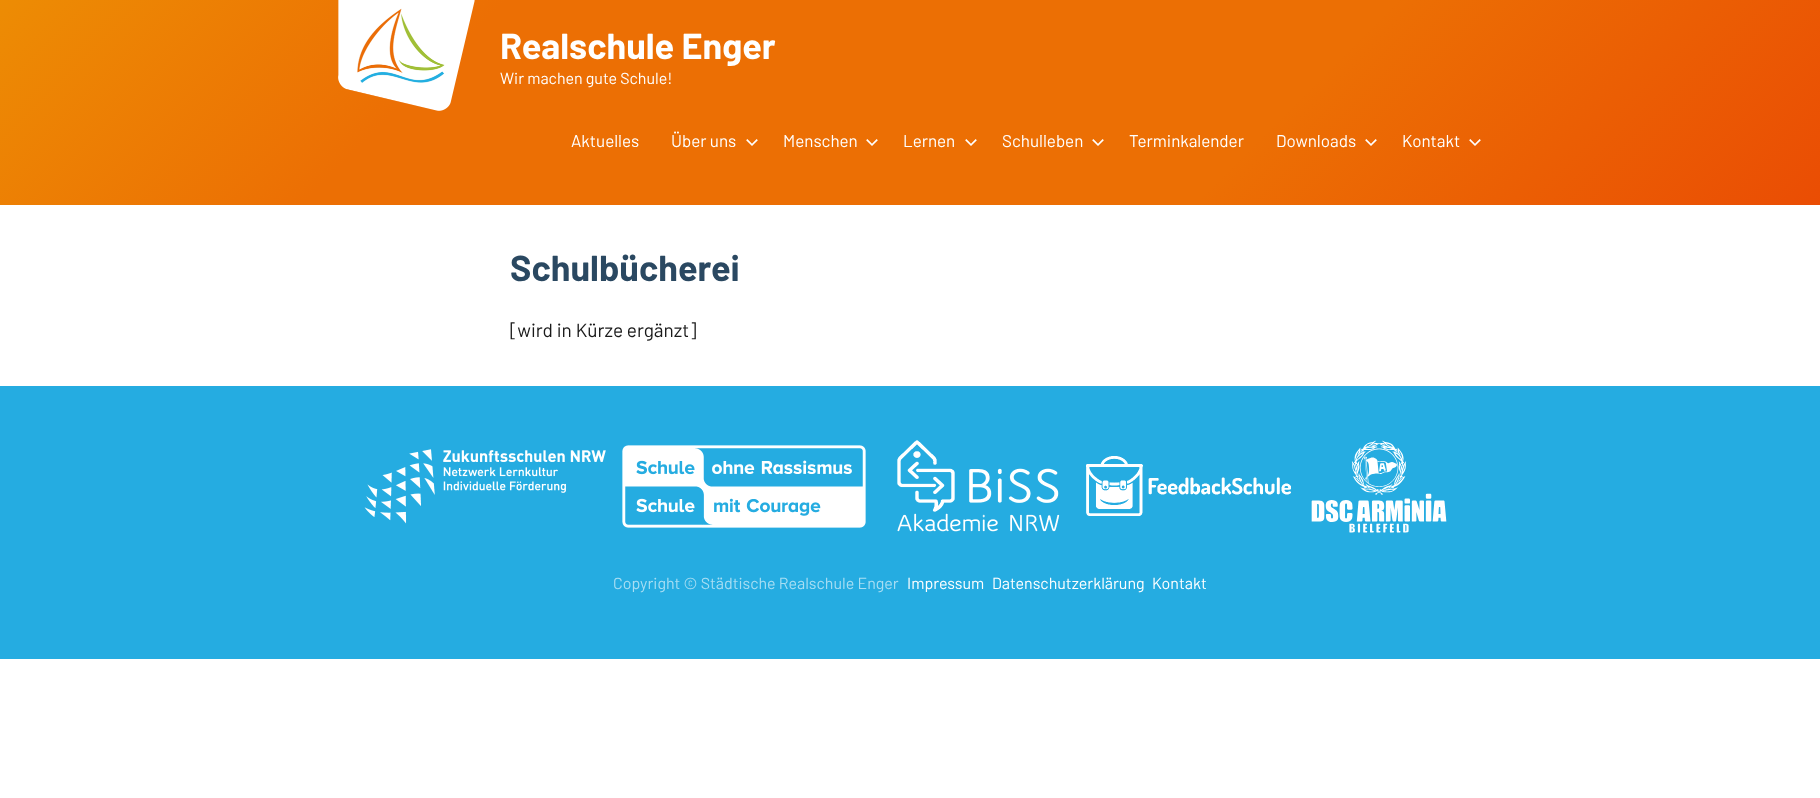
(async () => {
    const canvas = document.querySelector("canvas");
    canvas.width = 1820;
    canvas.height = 798;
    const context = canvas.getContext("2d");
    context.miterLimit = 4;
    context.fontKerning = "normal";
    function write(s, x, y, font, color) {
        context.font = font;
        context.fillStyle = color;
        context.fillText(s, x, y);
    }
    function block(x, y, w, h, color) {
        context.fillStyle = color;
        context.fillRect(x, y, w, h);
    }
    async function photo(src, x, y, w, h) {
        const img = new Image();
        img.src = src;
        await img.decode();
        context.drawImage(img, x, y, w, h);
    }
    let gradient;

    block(0, 0, 1820, 798, "rgb(255, 255, 255)");
    gradient = context.createLinearGradient(404, -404, 1416, 609);
    gradient.addColorStop(0, "rgb(237, 140, 4)");
    gradient.addColorStop(0.25, "rgb(236, 111, 4)");
    gradient.addColorStop(0.69, "rgb(236, 111, 4)");
    gradient.addColorStop(1, "rgb(234, 77, 4)");
    context.fillStyle = gradient;
    context.fillRect(0, 0, 1820, 205);
    await photo("media/1.png", 338, 0, 137, 111);
    write("Realschule Enger", 500, 59, "bold 36px Barlow", "rgb(255, 255, 255)");
    write("Wir machen gute Schule!", 500, 84, "16px Barlow", "rgb(255, 255, 255)");
    write("Aktuelles", 571, 147, "17px Barlow", "rgb(255, 255, 255)");
    write("Über uns", 671, 147, "17px Barlow", "rgb(255, 255, 255)");
    await photo("media/2.png", 746, 139, 12, 7);
    write("Menschen", 783, 147, "17px Barlow", "rgb(255, 255, 255)");
    await photo("media/2.png", 866, 139, 12, 7);
    write("Lernen", 903, 147, "17px Barlow", "rgb(255, 255, 255)");
    await photo("media/2.png", 965, 139, 12, 7);
    write("Schulleben", 1002, 147, "17px Barlow", "rgb(255, 255, 255)");
    await photo("media/2.png", 1092, 139, 12, 7);
    write("Terminkalender", 1129, 147, "17px Barlow", "rgb(255, 255, 255)");
    write("Downloads", 1276, 147, "17px Barlow", "rgb(255, 255, 255)");
    await photo("media/3.png", 1365, 139, 12, 7);
    write("Kontakt", 1402, 147, "17px Barlow", "rgb(255, 255, 255)");
    await photo("media/4.png", 1469, 139, 12, 7);
    write("Schulbücherei", 510, 281, "bold 36px Barlow", "rgb(42, 72, 97)");
    write("[wird in Kürze ergänzt]", 510, 337, "19px Barlow", "rgb(26, 26, 26)");
    block(0, 386, 1820, 273, "rgb(37, 172, 225)");
    await photo("media/5.png", 364, 449, 242, 75);
    await photo("media/6.png", 622, 445, 244, 83);
    await photo("media/7.png", 897, 440, 163, 92);
    await photo("media/8.png", 1086, 456, 205, 60);
    await photo("media/9.png", 1311, 440, 136, 93);
    write("Copyright © Städtische Realschule Enger", 613, 589, "16px Barlow", "rgb(168, 222, 243)");
    write("Impressum", 907, 589, "16px Barlow", "rgb(255, 255, 255)");
    write("Datenschutzerklärung", 992, 589, "16px Barlow", "rgb(255, 255, 255)");
    write("Kontakt", 1152, 589, "16px Barlow", "rgb(255, 255, 255)");
})();
